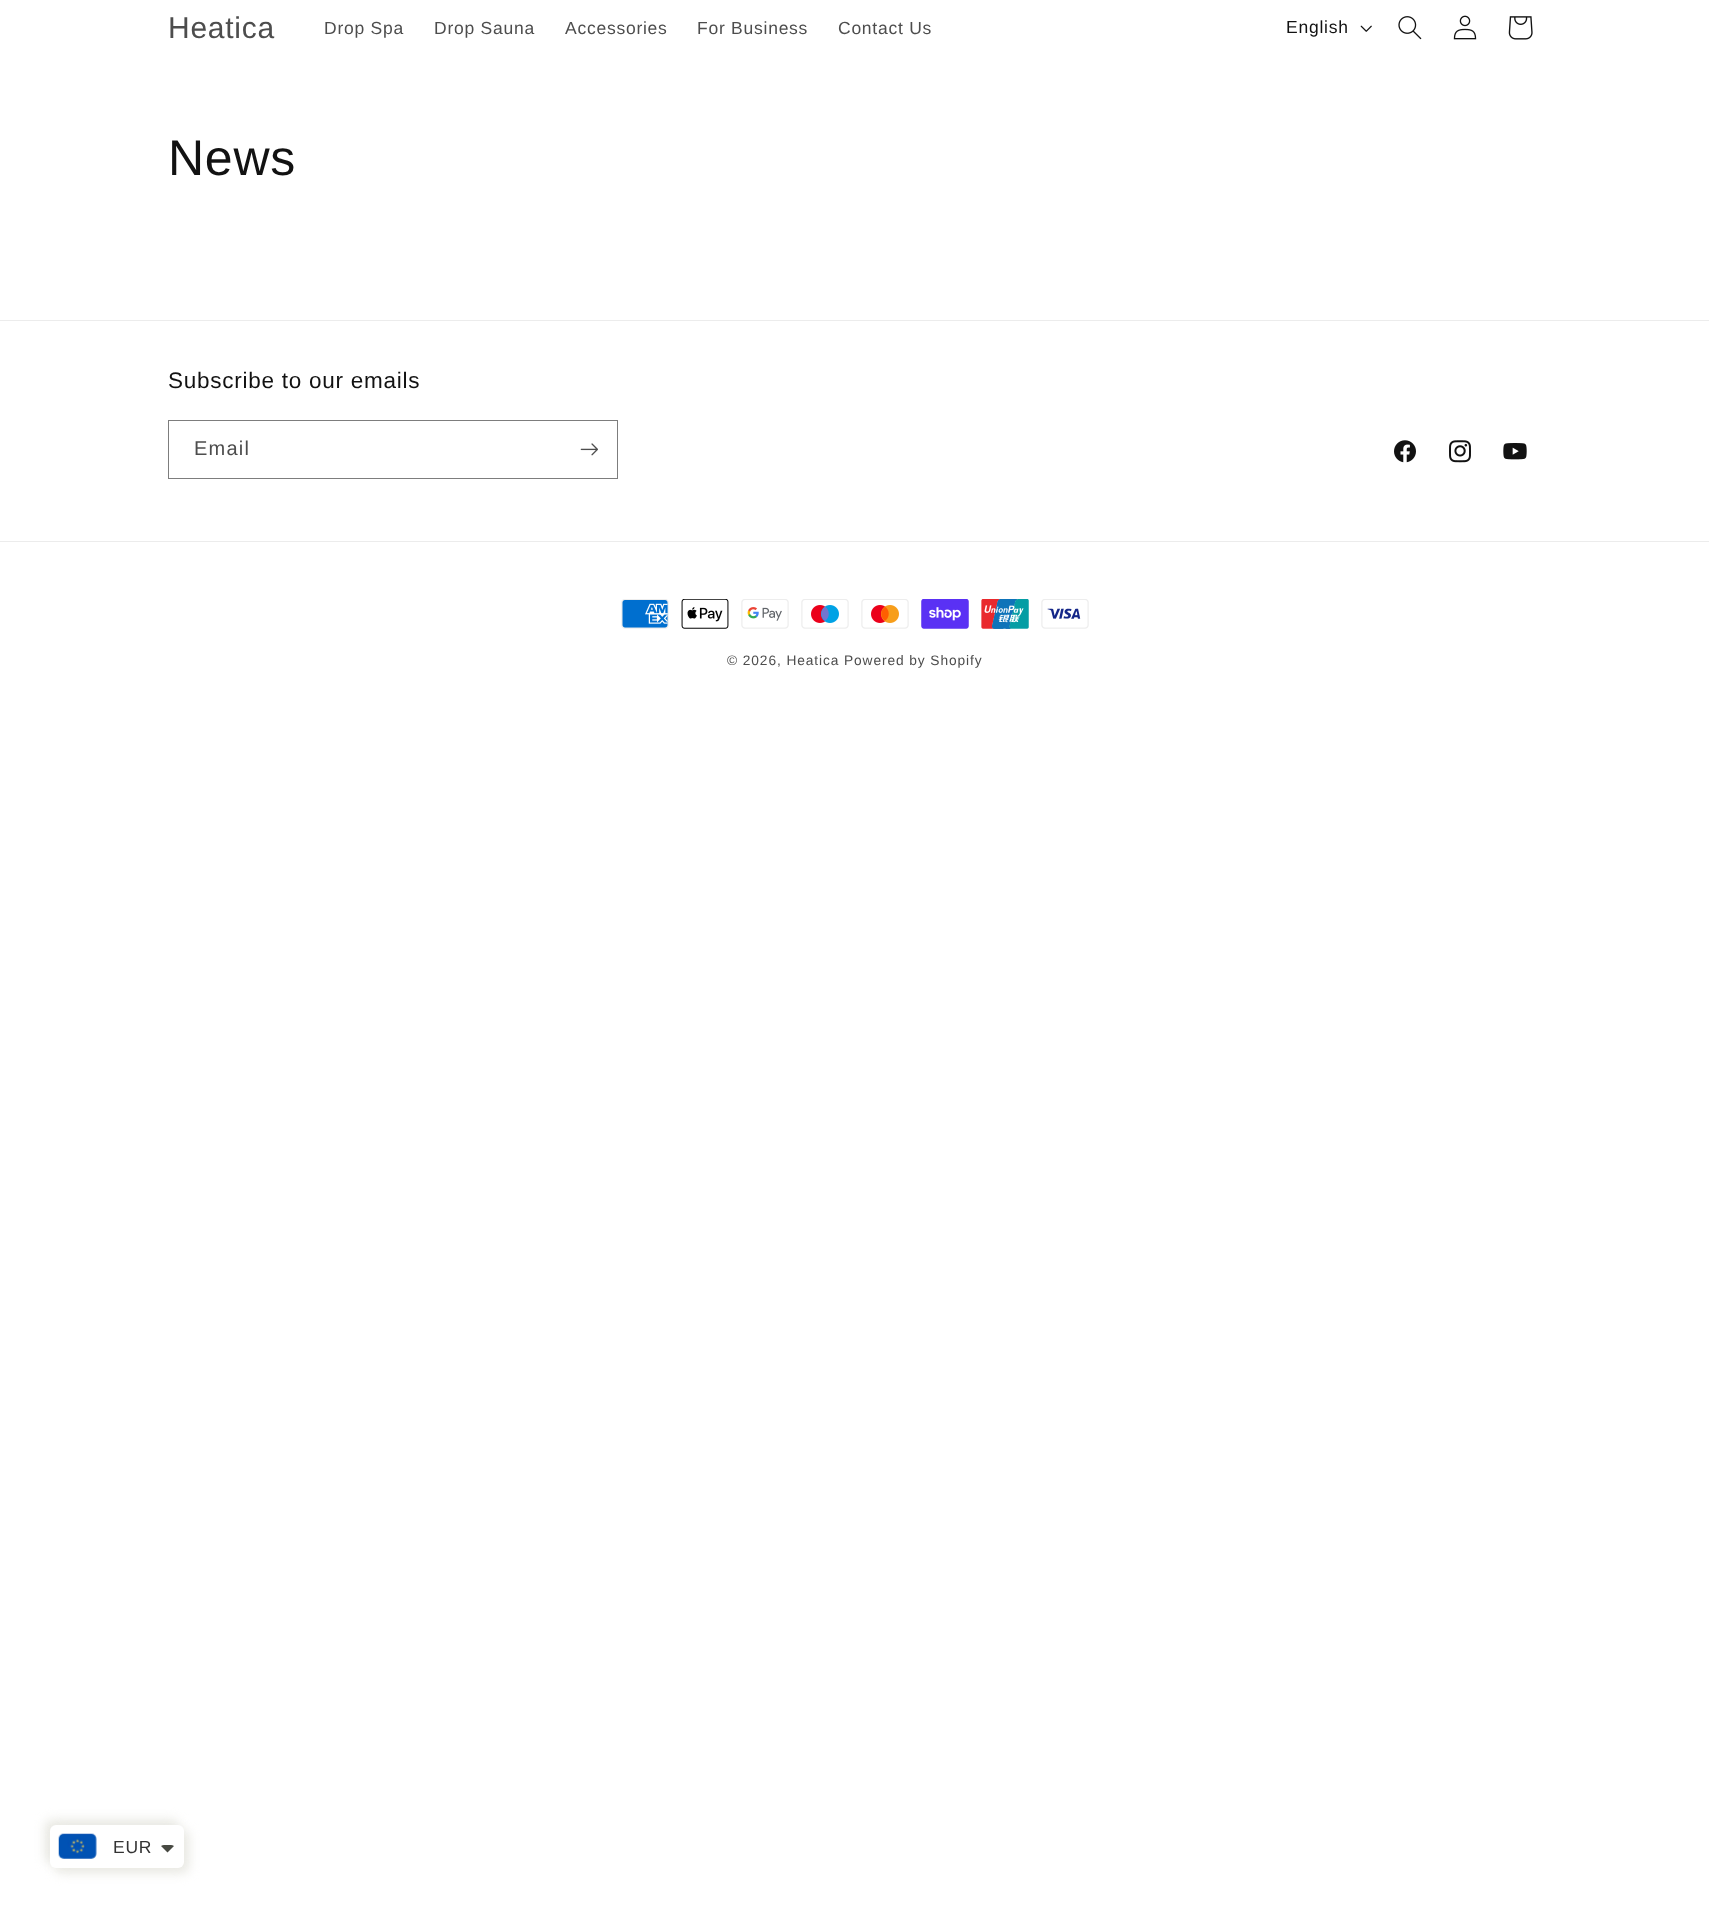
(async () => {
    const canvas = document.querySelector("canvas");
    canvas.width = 1709;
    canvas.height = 1921;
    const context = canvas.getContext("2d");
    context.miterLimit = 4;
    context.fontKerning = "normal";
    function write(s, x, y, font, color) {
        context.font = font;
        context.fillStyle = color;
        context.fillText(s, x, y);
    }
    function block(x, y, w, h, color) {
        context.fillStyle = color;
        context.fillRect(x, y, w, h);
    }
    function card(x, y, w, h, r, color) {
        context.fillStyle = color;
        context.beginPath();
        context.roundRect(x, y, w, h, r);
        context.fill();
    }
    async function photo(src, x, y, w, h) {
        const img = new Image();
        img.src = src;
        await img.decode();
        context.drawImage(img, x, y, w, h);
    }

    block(0, 0, 1709, 1921, "rgb(255, 255, 255)");
    context.letterSpacing = "0.75px";
    write("Heatica", 168, 38, "30px Liberation Sans", "rgb(77, 77, 77)");
    write("Drop Spa", 324, 34, "17.5px Liberation Sans", "rgb(77, 77, 77)");
    write("Drop Sauna", 434, 34, "17.5px Liberation Sans", "rgb(77, 77, 77)");
    write("Accessories", 565, 34, "17.5px Liberation Sans", "rgb(77, 77, 77)");
    write("For Business", 697, 34, "17.5px Liberation Sans", "rgb(77, 77, 77)");
    write("Contact Us", 838, 34, "17.5px Liberation Sans", "rgb(77, 77, 77)");
    write("English", 1286, 33, "17.5px Liberation Sans", "rgb(18, 18, 18)");
    await photo("media/1.png", 1360, 25, 12, 7);
    await photo("media/2.png", 1398, 16, 24, 24);
    await photo("media/3.png", 1453, 15, 24, 25);
    await photo("media/4.png", 1508, 16, 25, 24);
    write("News", 168, 175, "50px Liberation Sans", "rgb(18, 18, 18)");
    block(0, 320, 1709, 1, "rgb(236, 236, 236)");
    write("Subscribe to our emails", 168, 388, "22.5px Liberation Sans", "rgb(18, 18, 18)");
    context.strokeStyle = "rgb(125, 125, 125)";
    context.strokeRect(168.5, 420.5, 449, 58);
    context.letterSpacing = "1.25px";
    write("Email", 194, 455, "20px Liberation Sans", "rgb(77, 77, 77)");
    await photo("media/5.png", 580, 443, 18, 13);
    await photo("media/6.png", 1394, 440, 22, 23);
    await photo("media/7.png", 1449, 440, 22, 23);
    await photo("media/8.png", 1503, 443, 24, 17);
    block(0, 541, 1709, 1, "rgb(236, 236, 236)");
    await photo("media/9.png", 621, 599, 48, 30);
    await photo("media/10.png", 681, 599, 48, 30);
    await photo("media/11.png", 741, 599, 48, 30);
    await photo("media/12.png", 801, 599, 48, 30);
    await photo("media/13.png", 861, 599, 48, 30);
    await photo("media/14.png", 921, 599, 48, 30);
    await photo("media/15.png", 981, 599, 48, 30);
    await photo("media/16.png", 1041, 599, 48, 30);
    context.letterSpacing = "0.9px";
    write("© 2026, Heatica", 727, 665, "13.75px Liberation Sans", "rgb(77, 77, 77)");
    write("Powered by Shopify", 844, 665, "13.75px Liberation Sans", "rgb(77, 77, 77)");
    context.fillStyle = "rgb(232, 232, 226)";
    context.filter = "blur(5.5px)";
    context.beginPath();
    context.roundRect(45, 1820, 134, 43, 6);
    context.fill();
    context.filter = "none";
    context.filter = "blur(5.5px)";
    context.beginPath();
    context.roundRect(55, 1830, 134, 43, 6);
    context.fill();
    context.filter = "none";
    card(50, 1825, 134, 43, 6, "rgb(255, 255, 255)");
    await photo("media/17.png", 58, 1833, 39, 26);
    context.letterSpacing = "0.75px";
    write("EUR", 113, 1853, "17.5px Liberation Sans", "rgb(51, 51, 51)");
    context.fillStyle = "rgb(71, 73, 66)";
    context.beginPath();
    context.moveTo(164, 1845);
    context.bezierCurveTo(163, 1845, 162, 1845.5, 161, 1846);
    context.lineTo(167.5, 1852.5);
    context.lineTo(174, 1846);
    context.bezierCurveTo(173, 1845.5, 172, 1845, 171, 1845);
    context.closePath();
    context.fill();
})();
